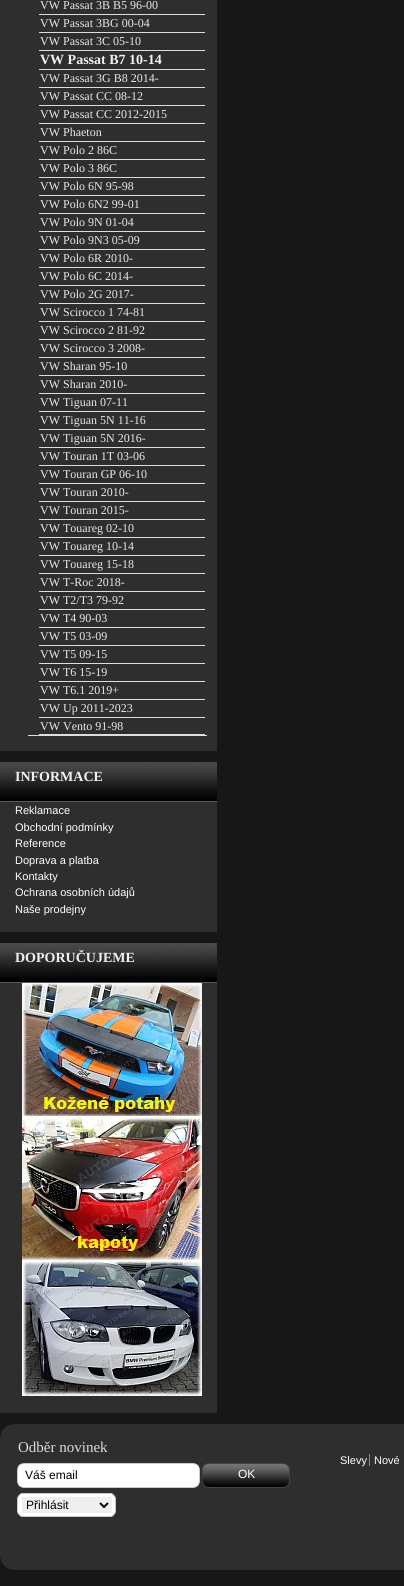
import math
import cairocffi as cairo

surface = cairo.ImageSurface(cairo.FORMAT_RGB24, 404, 1586)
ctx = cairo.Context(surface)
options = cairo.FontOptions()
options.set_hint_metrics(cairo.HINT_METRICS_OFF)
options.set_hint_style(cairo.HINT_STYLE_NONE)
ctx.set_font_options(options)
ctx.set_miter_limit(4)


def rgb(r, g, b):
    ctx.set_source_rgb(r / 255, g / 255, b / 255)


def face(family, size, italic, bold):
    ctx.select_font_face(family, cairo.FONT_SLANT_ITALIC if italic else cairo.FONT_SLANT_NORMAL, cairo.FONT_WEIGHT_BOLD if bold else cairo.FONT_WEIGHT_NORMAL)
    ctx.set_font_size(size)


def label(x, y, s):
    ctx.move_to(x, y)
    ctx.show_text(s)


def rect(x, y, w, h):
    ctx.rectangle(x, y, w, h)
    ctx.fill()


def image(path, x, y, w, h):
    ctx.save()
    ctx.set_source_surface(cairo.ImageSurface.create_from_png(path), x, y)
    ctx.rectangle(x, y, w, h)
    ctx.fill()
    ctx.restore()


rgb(23, 23, 23)
ctx.paint()
rgb(46, 46, 46)
rect(0, 0, 217, 751)
rgb(221, 221, 221)
rect(28, 735, 179, 1)
rect(39, 14, 166, 1)
face('Liberation Serif', 12, 0, 0)
rgb(233, 233, 233)
label(40, 9, 'VW Passat 3B B5 96-00')
rgb(221, 221, 221)
rect(39, 32, 166, 1)
rgb(233, 233, 233)
label(40, 27, 'VW Passat 3BG 00-04')
rgb(221, 221, 221)
rect(39, 50, 166, 1)
rgb(233, 233, 233)
label(40, 45, 'VW Passat 3C 05-10')
rgb(221, 221, 221)
rect(39, 69, 166, 1)
face('Liberation Serif', 14, 0, 1)
rgb(240, 241, 241)
label(40, 64, 'VW Passat B7 10-14')
rgb(221, 221, 221)
rect(39, 87, 166, 1)
face('Liberation Serif', 12, 0, 0)
rgb(233, 233, 233)
label(40, 82, 'VW Passat 3G B8 2014-')
rgb(221, 221, 221)
rect(39, 105, 166, 1)
rgb(233, 233, 233)
label(40, 100, 'VW Passat CC 08-12')
rgb(221, 221, 221)
rect(39, 123, 166, 1)
rgb(233, 233, 233)
label(40, 118, 'VW Passat CC 2012-2015')
rgb(221, 221, 221)
rect(39, 141, 166, 1)
rgb(233, 233, 233)
label(40, 136, 'VW Phaeton')
rgb(221, 221, 221)
rect(39, 159, 166, 1)
rgb(233, 233, 233)
label(40, 154, 'VW Polo 2 86C')
rgb(221, 221, 221)
rect(39, 177, 166, 1)
rgb(233, 233, 233)
label(40, 172, 'VW Polo 3 86C')
rgb(221, 221, 221)
rect(39, 195, 166, 1)
rgb(233, 233, 233)
label(40, 190, 'VW Polo 6N 95-98')
rgb(221, 221, 221)
rect(39, 213, 166, 1)
rgb(233, 233, 233)
label(40, 208, 'VW Polo 6N2 99-01')
rgb(221, 221, 221)
rect(39, 231, 166, 1)
rgb(233, 233, 233)
label(40, 226, 'VW Polo 9N 01-04')
rgb(221, 221, 221)
rect(39, 249, 166, 1)
rgb(233, 233, 233)
label(40, 244, 'VW Polo 9N3 05-09')
rgb(221, 221, 221)
rect(39, 267, 166, 1)
rgb(233, 233, 233)
label(40, 262, 'VW Polo 6R 2010-')
rgb(221, 221, 221)
rect(39, 285, 166, 1)
rgb(233, 233, 233)
label(40, 280, 'VW Polo 6C 2014-')
rgb(221, 221, 221)
rect(39, 303, 166, 1)
rgb(233, 233, 233)
label(40, 298, 'VW Polo 2G 2017-')
rgb(221, 221, 221)
rect(39, 321, 166, 1)
rgb(233, 233, 233)
label(40, 316, 'VW Scirocco 1 74-81')
rgb(221, 221, 221)
rect(39, 339, 166, 1)
rgb(233, 233, 233)
label(40, 334, 'VW Scirocco 2 81-92')
rgb(221, 221, 221)
rect(39, 357, 166, 1)
rgb(233, 233, 233)
label(40, 352, 'VW Scirocco 3 2008-')
rgb(221, 221, 221)
rect(39, 375, 166, 1)
rgb(233, 233, 233)
label(40, 370, 'VW Sharan 95-10')
rgb(221, 221, 221)
rect(39, 393, 166, 1)
rgb(233, 233, 233)
label(40, 388, 'VW Sharan 2010-')
rgb(221, 221, 221)
rect(39, 411, 166, 1)
rgb(233, 233, 233)
label(40, 406, 'VW Tiguan 07-11')
rgb(221, 221, 221)
rect(39, 429, 166, 1)
rgb(233, 233, 233)
label(40, 424, 'VW Tiguan 5N 11-16')
rgb(221, 221, 221)
rect(39, 447, 166, 1)
rgb(233, 233, 233)
label(40, 442, 'VW Tiguan 5N 2016-')
rgb(221, 221, 221)
rect(39, 465, 166, 1)
rgb(233, 233, 233)
label(40, 460, 'VW Touran 1T 03-06')
rgb(221, 221, 221)
rect(39, 483, 166, 1)
rgb(233, 233, 233)
label(40, 478, 'VW Touran GP 06-10')
rgb(221, 221, 221)
rect(39, 501, 166, 1)
rgb(233, 233, 233)
label(40, 496, 'VW Touran 2010-')
rgb(221, 221, 221)
rect(39, 519, 166, 1)
rgb(233, 233, 233)
label(40, 514, 'VW Touran 2015-')
rgb(221, 221, 221)
rect(39, 537, 166, 1)
rgb(233, 233, 233)
label(40, 532, 'VW Touareg 02-10')
rgb(221, 221, 221)
rect(39, 555, 166, 1)
rgb(233, 233, 233)
label(40, 550, 'VW Touareg 10-14')
rgb(221, 221, 221)
rect(39, 573, 166, 1)
rgb(233, 233, 233)
label(40, 568, 'VW Touareg 15-18')
rgb(221, 221, 221)
rect(39, 591, 166, 1)
rgb(233, 233, 233)
label(40, 586, 'VW T-Roc 2018-')
rgb(221, 221, 221)
rect(39, 609, 166, 1)
rgb(233, 233, 233)
label(40, 604, 'VW T2/T3 79-92')
rgb(221, 221, 221)
rect(39, 627, 166, 1)
rgb(233, 233, 233)
label(40, 622, 'VW T4 90-03')
rgb(221, 221, 221)
rect(39, 645, 166, 1)
rgb(233, 233, 233)
label(40, 640, 'VW T5 03-09')
rgb(221, 221, 221)
rect(39, 663, 166, 1)
rgb(233, 233, 233)
label(40, 658, 'VW T5 09-15')
rgb(221, 221, 221)
rect(39, 681, 166, 1)
rgb(233, 233, 233)
label(40, 676, 'VW T6 15-19')
rgb(221, 221, 221)
rect(39, 699, 166, 1)
rgb(233, 233, 233)
label(40, 694, 'VW T6.1 2019+')
rgb(221, 221, 221)
rect(39, 717, 166, 1)
rgb(233, 233, 233)
label(40, 712, 'VW Up 2011-2023')
rgb(221, 221, 221)
rect(39, 734, 166, 1)
rgb(233, 233, 233)
label(40, 730, 'VW Vento 91-98')
image('image0.png', 0, 762, 217, 39)
rgb(89, 90, 94)
rect(0, 801, 217, 1)
face('Liberation Serif', 14, 0, 1)
rgb(240, 241, 241)
label(15, 781, 'INFORMACE')
rgb(46, 46, 46)
rect(0, 802, 217, 130)
face('Liberation Sans', 11, 0, 0)
rgb(255, 255, 255)
label(15, 814, 'Reklamace')
label(15, 831, 'Obchodní podmínky')
label(15, 847, 'Reference')
label(15, 864, 'Doprava a platba')
label(15, 880, 'Kontakty')
label(15, 896, 'Ochrana osobních údajů')
label(15, 913, 'Naše prodejny')
image('image0.png', 0, 943, 217, 39)
rgb(89, 90, 94)
rect(0, 982, 217, 1)
face('Liberation Serif', 14, 0, 1)
rgb(240, 241, 241)
label(15, 962, 'DOPORUČUJEME')
rgb(46, 46, 46)
rect(0, 983, 217, 430)
image('image1.png', 22, 983, 180, 413)
rect(13, 1424, 391, 146)
image('image2.png', 0, 1424, 13, 146)
face('Liberation Serif', 15, 0, 0)
rgb(221, 221, 221)
label(18, 1452, 'Odběr novinek')
image('image3.png', 17, 1463, 183, 25)
face('Liberation Sans', 12, 0, 0)
rgb(0, 0, 0)
label(25, 1479, 'Váš email')
image('image4.png', 202, 1463, 88, 25)
rgb(255, 255, 255)
label(238, 1478, 'OK')
image('image5.png', 17, 1493, 99, 24)
rgb(239, 239, 239)
rect(22, 1497, 90, 16)
ctx.new_path()
ctx.move_to(100, 1503)
ctx.line_to(104, 1507)
ctx.line_to(108, 1503)
rgb(0, 0, 0)
ctx.stroke()
label(26, 1509, 'Přihlásit')
face('Liberation Sans', 11, 0, 0)
rgb(255, 255, 255)
label(340, 1464, 'Slevy')
label(374, 1464, 'Nové')
rgb(136, 136, 136)
rect(369, 1454, 1, 12)
surface.write_to_png('render.png')
